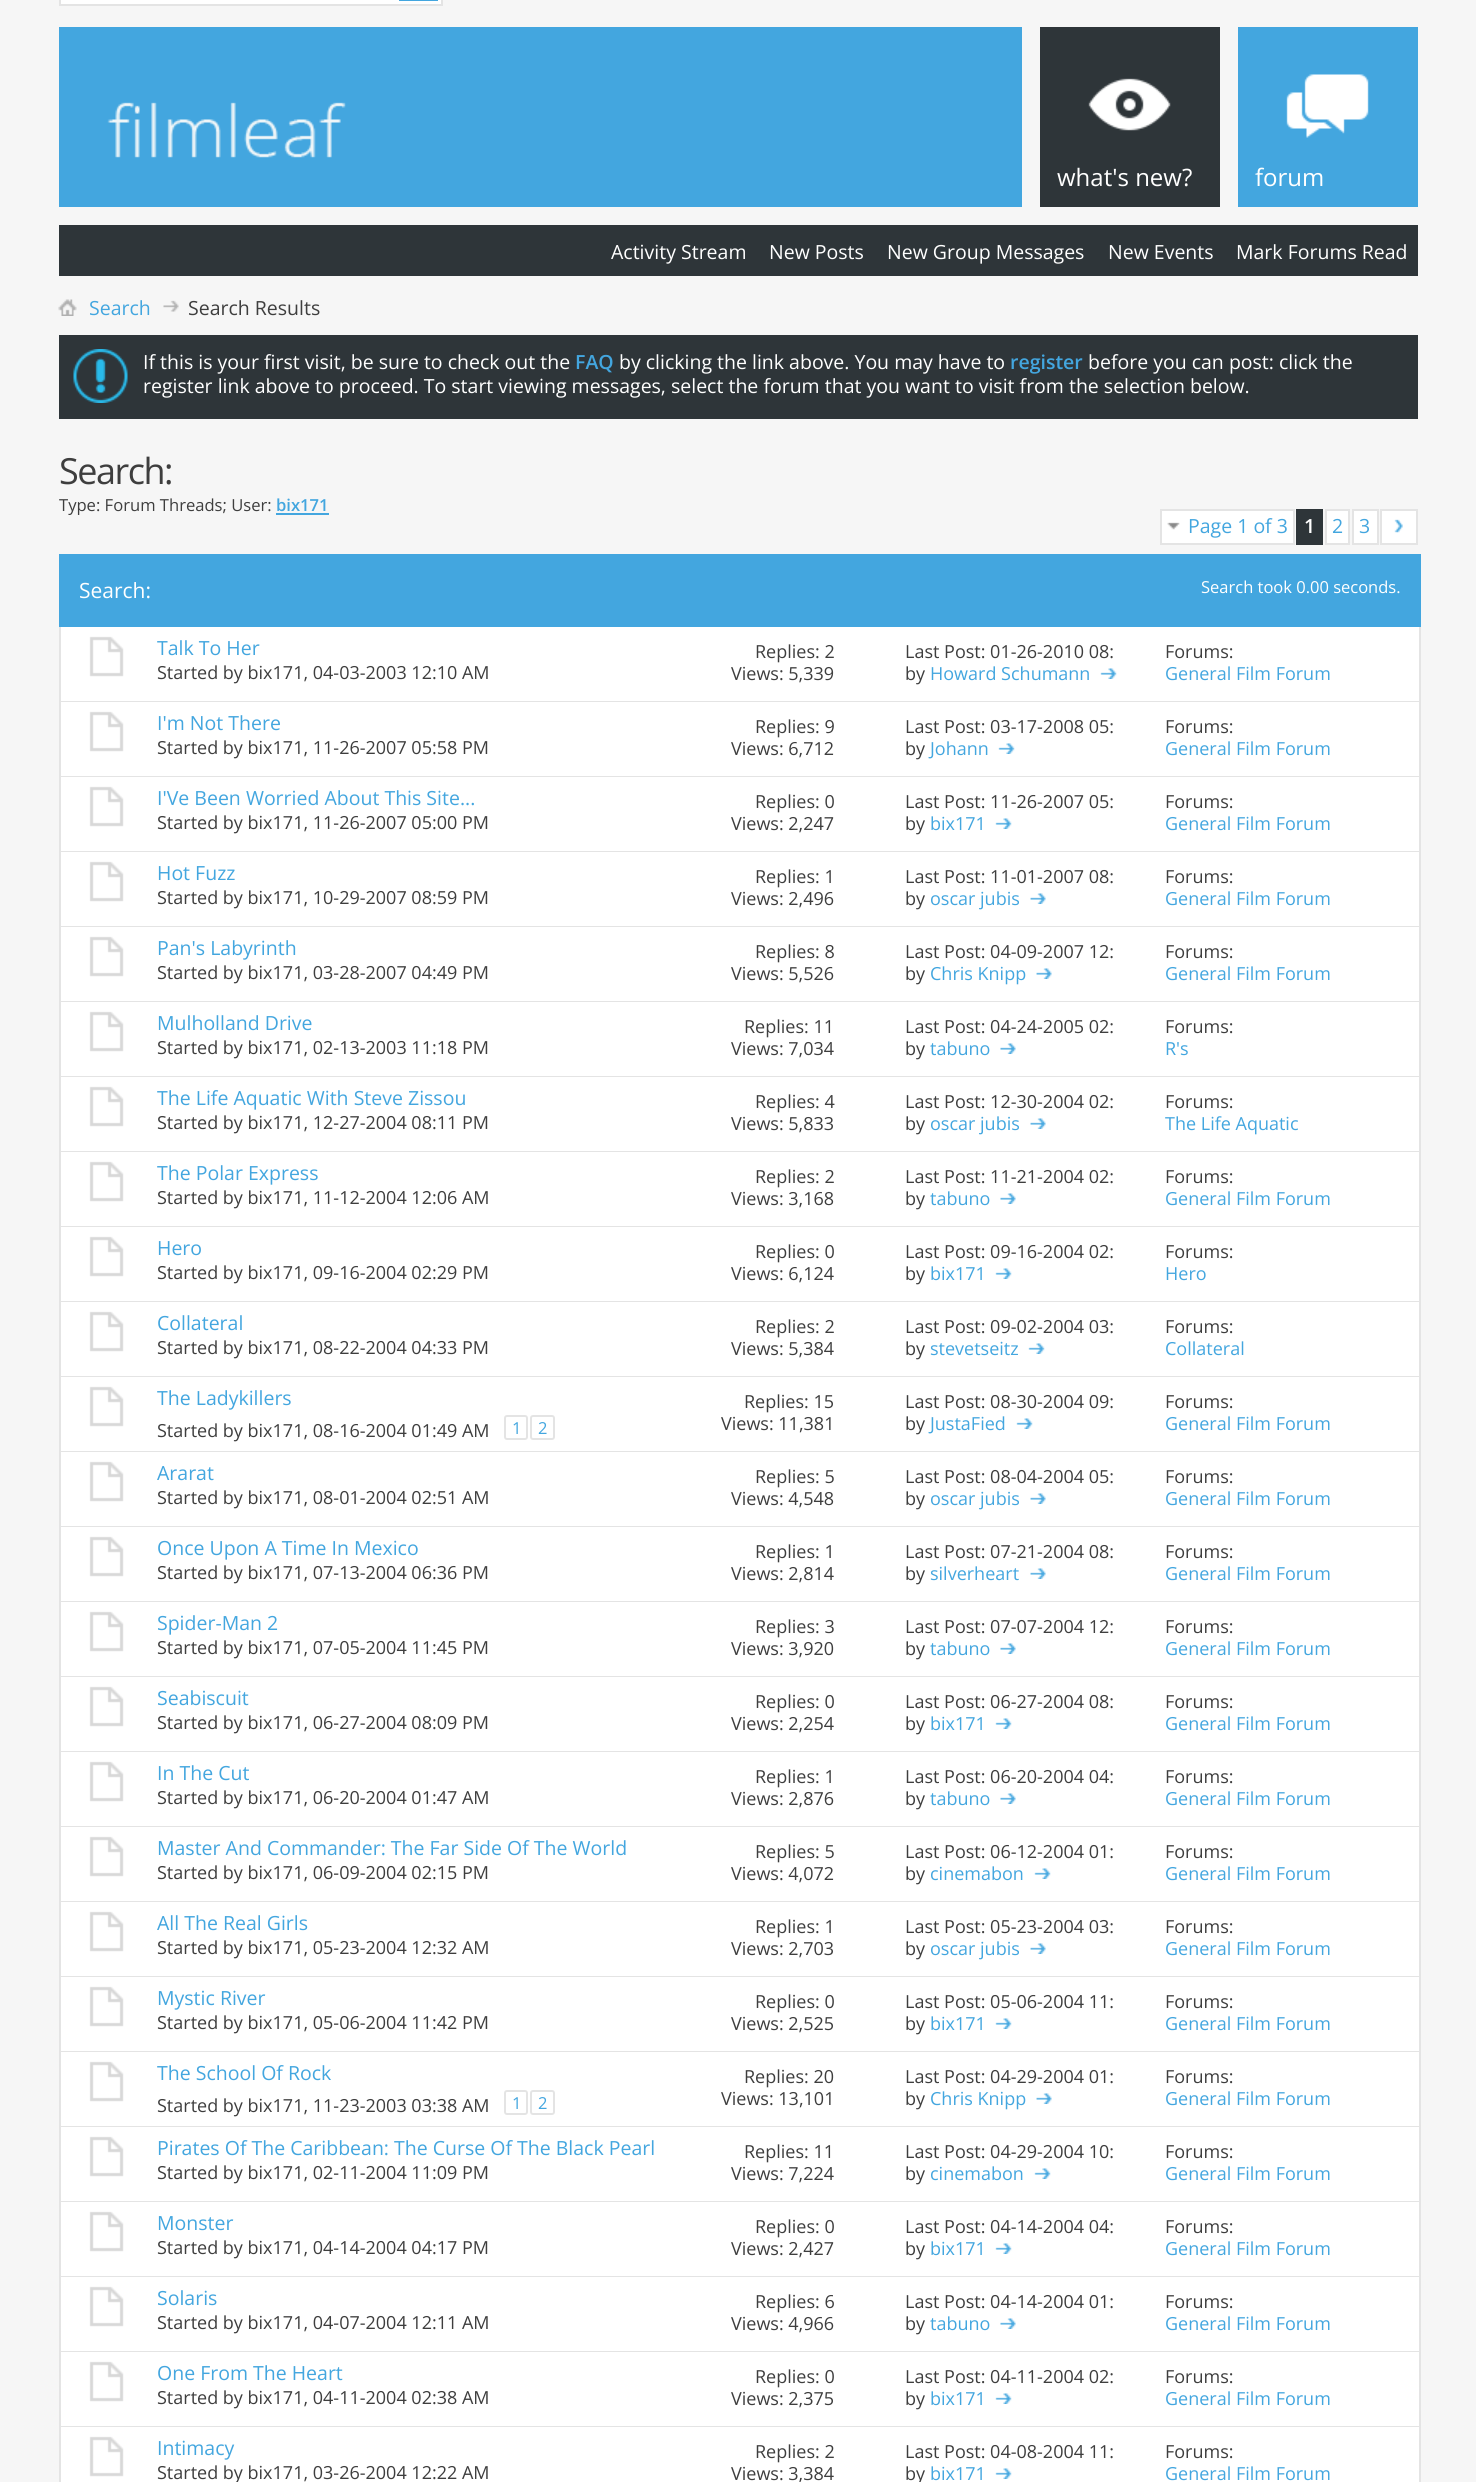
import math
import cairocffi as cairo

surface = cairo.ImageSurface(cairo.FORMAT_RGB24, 1476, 2482)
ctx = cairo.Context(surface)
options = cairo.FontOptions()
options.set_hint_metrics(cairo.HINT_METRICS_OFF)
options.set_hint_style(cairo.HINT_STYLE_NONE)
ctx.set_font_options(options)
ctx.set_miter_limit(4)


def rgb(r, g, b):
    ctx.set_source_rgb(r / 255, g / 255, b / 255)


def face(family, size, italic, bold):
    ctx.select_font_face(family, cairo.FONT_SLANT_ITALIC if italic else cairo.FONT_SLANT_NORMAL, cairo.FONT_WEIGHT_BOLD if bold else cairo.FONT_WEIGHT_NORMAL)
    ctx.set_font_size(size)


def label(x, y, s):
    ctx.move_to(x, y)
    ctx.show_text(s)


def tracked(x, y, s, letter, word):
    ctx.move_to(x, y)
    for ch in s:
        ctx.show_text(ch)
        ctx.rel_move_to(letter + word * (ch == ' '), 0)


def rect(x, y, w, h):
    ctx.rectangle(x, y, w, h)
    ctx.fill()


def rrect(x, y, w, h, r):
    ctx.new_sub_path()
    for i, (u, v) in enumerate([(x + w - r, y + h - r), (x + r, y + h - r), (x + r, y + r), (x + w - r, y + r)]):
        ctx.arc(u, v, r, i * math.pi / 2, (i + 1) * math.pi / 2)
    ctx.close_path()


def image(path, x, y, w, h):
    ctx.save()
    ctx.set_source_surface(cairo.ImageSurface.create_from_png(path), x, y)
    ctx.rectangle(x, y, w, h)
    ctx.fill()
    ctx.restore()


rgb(246, 246, 246)
ctx.paint()
rgb(255, 255, 255)
ctx.rectangle(60, -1, 382, 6)
ctx.fill_preserve()
rgb(228, 228, 228)
ctx.stroke()
rgb(67, 166, 223)
rect(399, 0, 39, 1)
rect(59, 27, 1359, 180)
image('image0.png', 107, 102, 239, 56)
rgb(246, 246, 246)
rect(1022, 27, 18, 180)
rgb(46, 53, 57)
rect(1040, 27, 180, 180)
image('image1.png', 1088, 78, 83, 53)
face('Open Sans', 24, 0, 0)
rgb(255, 255, 255)
label(1057, 186, 'what\'s new?')
rgb(246, 246, 246)
rect(1220, 27, 18, 180)
image('image2.png', 1286, 74, 83, 64)
rgb(255, 255, 255)
label(1255, 186, 'forum')
rgb(46, 53, 57)
rect(59, 225, 1359, 51)
face('Open Sans', 19.5, 0, 0)
rgb(255, 255, 255)
label(611, 259, 'Activity Stream')
label(769, 259, 'New Posts')
label(887, 259, 'New Group Messages')
label(1108, 259, 'New Events')
label(1236, 259, 'Mark Forums Read')
image('image3.png', 58, 299, 19, 17)
image('image4.png', 163, 300, 16, 12)
rgb(67, 166, 223)
label(89, 315, 'Search')
rgb(62, 62, 62)
label(188, 315, 'Search Results')
rgb(46, 53, 57)
rect(59, 335, 1359, 84)
image('image5.png', 73, 349, 55, 54)
rgb(255, 255, 255)
label(143, 369, 'If this is your first visit, be sure to check out the')
face('Open Sans SemiBold', 19.5, 0, 0)
rgb(67, 166, 223)
label(575, 369, 'FAQ')
face('Open Sans', 19.5, 0, 0)
rgb(255, 255, 255)
label(619, 369, 'by clicking the link above. You may have to')
face('Open Sans SemiBold', 19.5, 0, 0)
rgb(67, 166, 223)
label(1010, 369, 'register')
face('Open Sans', 19.5, 0, 0)
rgb(255, 255, 255)
label(1088, 369, 'before you can post: click the')
label(143, 393, 'register link above to proceed. To start viewing messages, select the forum that you want to visit from the selection below.')
face('Open Sans', 36, 0, 0)
rgb(62, 62, 62)
tracked(59, 484, 'Search:', -1.5, 0)
face('Open Sans', 16.6, 0, 0)
label(59, 511, 'Type: Forum Threads; User:')
face('Open Sans SemiBold', 16.6, 0, 0)
rgb(67, 166, 223)
label(276, 511, 'bix171')
rect(276, 513, 53, 2)
rgb(255, 255, 255)
rect(1162, 511, 131, 32)
image('image6.png', 1167, 522, 13, 8)
ctx.rectangle(1161, 510, 133, 34)
rgb(228, 228, 228)
ctx.stroke()
face('Open Sans', 19.5, 0, 0)
rgb(67, 166, 223)
label(1188, 533, 'Page 1 of 3')
rgb(46, 53, 57)
rect(1296, 509, 27, 36)
face('Open Sans SemiBold', 19.5, 0, 0)
rgb(255, 255, 255)
label(1304, 533, '1')
ctx.rectangle(1326, 510, 23, 34)
ctx.fill_preserve()
rgb(228, 228, 228)
ctx.stroke()
face('Open Sans', 19.5, 0, 0)
rgb(67, 166, 223)
label(1332, 533, '2')
rgb(255, 255, 255)
ctx.rectangle(1353, 510, 25, 34)
ctx.fill_preserve()
rgb(228, 228, 228)
ctx.stroke()
rgb(67, 166, 223)
label(1359, 533, '3')
rgb(255, 255, 255)
ctx.rectangle(1381, 510, 36, 34)
ctx.fill_preserve()
rgb(228, 228, 228)
ctx.stroke()
image('image7.png', 1394, 519, 9, 14)
rgb(67, 166, 223)
rect(59, 554, 1362, 73)
face('Open Sans', 21, 0, 0)
rgb(255, 255, 255)
label(79, 598, 'Search:')
face('Open Sans', 16.5, 0, 0)
label(1201, 593, 'Search took 0.00 seconds.')
rect(61, 627, 1358, 74)
rgb(228, 228, 228)
rect(1419, 627, 2, 1050)
rect(59, 701, 1362, 1)
rect(59, 627, 2, 75)
image('image8.png', 89, 636, 35, 41)
face('Open Sans', 19.5, 0, 0)
rgb(67, 166, 223)
label(157, 655, 'Talk To Her')
face('Open Sans', 18, 0, 0)
rgb(62, 62, 62)
label(157, 679, 'Started by bix171, 04-03-2003 12:10 AM')
label(755, 658, 'Replies: 2')
label(731, 680, 'Views: 5,339')
label(905, 658, 'Last Post: 01-26-2010 08:')
label(905, 680, 'by')
rgb(67, 166, 223)
label(930, 680, 'Howard Schumann')
image('image9.png', 1100, 668, 17, 11)
rgb(62, 62, 62)
label(1165, 658, 'Forums:')
rgb(67, 166, 223)
label(1165, 680, 'General Film Forum')
rgb(255, 255, 255)
rect(61, 702, 1358, 74)
rgb(228, 228, 228)
rect(59, 776, 1362, 1)
rect(59, 702, 2, 75)
image('image8.png', 89, 711, 35, 41)
face('Open Sans', 19.5, 0, 0)
rgb(67, 166, 223)
label(157, 730, 'I\'m Not There')
face('Open Sans', 18, 0, 0)
rgb(62, 62, 62)
label(157, 754, 'Started by bix171, 11-26-2007 05:58 PM')
label(755, 733, 'Replies: 9')
label(731, 755, 'Views: 6,712')
label(905, 733, 'Last Post: 03-17-2008 05:')
label(905, 755, 'by')
rgb(67, 166, 223)
label(930, 755, 'Johann')
image('image9.png', 998, 743, 17, 11)
rgb(62, 62, 62)
label(1165, 733, 'Forums:')
rgb(67, 166, 223)
label(1165, 755, 'General Film Forum')
rgb(255, 255, 255)
rect(61, 777, 1358, 74)
rgb(228, 228, 228)
rect(59, 851, 1362, 1)
rect(59, 777, 2, 75)
image('image8.png', 89, 786, 35, 41)
face('Open Sans', 19.5, 0, 0)
rgb(67, 166, 223)
label(157, 805, 'I\'Ve Been Worried About This Site...')
face('Open Sans', 18, 0, 0)
rgb(62, 62, 62)
label(157, 829, 'Started by bix171, 11-26-2007 05:00 PM')
label(755, 808, 'Replies: 0')
label(731, 830, 'Views: 2,247')
label(905, 808, 'Last Post: 11-26-2007 05:')
label(905, 830, 'by')
rgb(67, 166, 223)
label(930, 830, 'bix171')
image('image9.png', 995, 818, 17, 11)
rgb(62, 62, 62)
label(1165, 808, 'Forums:')
rgb(67, 166, 223)
label(1165, 830, 'General Film Forum')
rgb(255, 255, 255)
rect(61, 852, 1358, 74)
rgb(228, 228, 228)
rect(59, 926, 1362, 1)
rect(59, 852, 2, 75)
image('image8.png', 89, 861, 35, 41)
face('Open Sans', 19.5, 0, 0)
rgb(67, 166, 223)
label(157, 880, 'Hot Fuzz')
face('Open Sans', 18, 0, 0)
rgb(62, 62, 62)
label(157, 904, 'Started by bix171, 10-29-2007 08:59 PM')
label(755, 883, 'Replies: 1')
label(731, 905, 'Views: 2,496')
label(905, 883, 'Last Post: 11-01-2007 08:')
label(905, 905, 'by')
rgb(67, 166, 223)
label(930, 905, 'oscar jubis')
image('image10.png', 1030, 893, 16, 11)
rgb(62, 62, 62)
label(1165, 883, 'Forums:')
rgb(67, 166, 223)
label(1165, 905, 'General Film Forum')
rgb(255, 255, 255)
rect(61, 927, 1358, 74)
rgb(228, 228, 228)
rect(59, 1001, 1362, 1)
rect(59, 927, 2, 75)
image('image8.png', 89, 936, 35, 41)
face('Open Sans', 19.5, 0, 0)
rgb(67, 166, 223)
label(157, 955, 'Pan\'s Labyrinth')
face('Open Sans', 18, 0, 0)
rgb(62, 62, 62)
label(157, 979, 'Started by bix171, 03-28-2007 04:49 PM')
label(755, 958, 'Replies: 8')
label(731, 980, 'Views: 5,526')
label(905, 958, 'Last Post: 04-09-2007 12:')
label(905, 980, 'by')
rgb(67, 166, 223)
label(930, 980, 'Chris Knipp')
image('image10.png', 1036, 968, 16, 11)
rgb(62, 62, 62)
label(1165, 958, 'Forums:')
rgb(67, 166, 223)
label(1165, 980, 'General Film Forum')
rgb(255, 255, 255)
rect(61, 1002, 1358, 74)
rgb(228, 228, 228)
rect(59, 1076, 1362, 1)
rect(59, 1002, 2, 75)
image('image8.png', 89, 1011, 35, 41)
face('Open Sans', 19.5, 0, 0)
rgb(67, 166, 223)
label(157, 1030, 'Mulholland Drive')
face('Open Sans', 18, 0, 0)
rgb(62, 62, 62)
label(157, 1054, 'Started by bix171, 02-13-2003 11:18 PM')
label(744, 1033, 'Replies: 11')
label(731, 1055, 'Views: 7,034')
label(905, 1033, 'Last Post: 04-24-2005 02:')
label(905, 1055, 'by')
rgb(67, 166, 223)
label(930, 1055, 'tabuno')
image('image11.png', 1000, 1043, 16, 11)
rgb(62, 62, 62)
label(1165, 1033, 'Forums:')
rgb(67, 166, 223)
label(1165, 1055, 'R\'s')
rgb(255, 255, 255)
rect(61, 1077, 1358, 74)
rgb(228, 228, 228)
rect(59, 1151, 1362, 1)
rect(59, 1077, 2, 75)
image('image8.png', 89, 1086, 35, 41)
face('Open Sans', 19.5, 0, 0)
rgb(67, 166, 223)
label(157, 1105, 'The Life Aquatic With Steve Zissou')
face('Open Sans', 18, 0, 0)
rgb(62, 62, 62)
label(157, 1129, 'Started by bix171, 12-27-2004 08:11 PM')
label(755, 1108, 'Replies: 4')
label(731, 1130, 'Views: 5,833')
label(905, 1108, 'Last Post: 12-30-2004 02:')
label(905, 1130, 'by')
rgb(67, 166, 223)
label(930, 1130, 'oscar jubis')
image('image10.png', 1030, 1118, 16, 11)
rgb(62, 62, 62)
label(1165, 1108, 'Forums:')
rgb(67, 166, 223)
label(1165, 1130, 'The Life Aquatic')
rgb(255, 255, 255)
rect(61, 1152, 1358, 74)
rgb(228, 228, 228)
rect(59, 1226, 1362, 1)
rect(59, 1152, 2, 75)
image('image8.png', 89, 1161, 35, 41)
face('Open Sans', 19.5, 0, 0)
rgb(67, 166, 223)
label(157, 1180, 'The Polar Express')
face('Open Sans', 18, 0, 0)
rgb(62, 62, 62)
label(157, 1204, 'Started by bix171, 11-12-2004 12:06 AM')
label(755, 1183, 'Replies: 2')
label(731, 1205, 'Views: 3,168')
label(905, 1183, 'Last Post: 11-21-2004 02:')
label(905, 1205, 'by')
rgb(67, 166, 223)
label(930, 1205, 'tabuno')
image('image11.png', 1000, 1193, 16, 11)
rgb(62, 62, 62)
label(1165, 1183, 'Forums:')
rgb(67, 166, 223)
label(1165, 1205, 'General Film Forum')
rgb(255, 255, 255)
rect(61, 1227, 1358, 74)
rgb(228, 228, 228)
rect(59, 1301, 1362, 1)
rect(59, 1227, 2, 75)
image('image8.png', 89, 1236, 35, 41)
face('Open Sans', 19.5, 0, 0)
rgb(67, 166, 223)
label(157, 1255, 'Hero')
face('Open Sans', 18, 0, 0)
rgb(62, 62, 62)
label(157, 1279, 'Started by bix171, 09-16-2004 02:29 PM')
label(755, 1258, 'Replies: 0')
label(731, 1280, 'Views: 6,124')
label(905, 1258, 'Last Post: 09-16-2004 02:')
label(905, 1280, 'by')
rgb(67, 166, 223)
label(930, 1280, 'bix171')
image('image9.png', 995, 1268, 17, 11)
rgb(62, 62, 62)
label(1165, 1258, 'Forums:')
rgb(67, 166, 223)
label(1165, 1280, 'Hero')
rgb(255, 255, 255)
rect(61, 1302, 1358, 74)
rgb(228, 228, 228)
rect(59, 1376, 1362, 1)
rect(59, 1302, 2, 75)
image('image8.png', 89, 1311, 35, 41)
face('Open Sans', 19.5, 0, 0)
rgb(67, 166, 223)
label(157, 1330, 'Collateral')
face('Open Sans', 18, 0, 0)
rgb(62, 62, 62)
label(157, 1354, 'Started by bix171, 08-22-2004 04:33 PM')
label(755, 1333, 'Replies: 2')
label(731, 1355, 'Views: 5,384')
label(905, 1333, 'Last Post: 09-02-2004 03:')
label(905, 1355, 'by')
rgb(67, 166, 223)
label(930, 1355, 'stevetseitz')
image('image9.png', 1028, 1343, 17, 11)
rgb(62, 62, 62)
label(1165, 1333, 'Forums:')
rgb(67, 166, 223)
label(1165, 1355, 'Collateral')
rgb(255, 255, 255)
rect(61, 1377, 1358, 74)
rgb(228, 228, 228)
rect(59, 1451, 1362, 1)
rect(59, 1377, 2, 75)
image('image8.png', 89, 1386, 35, 41)
face('Open Sans', 19.5, 0, 0)
rgb(67, 166, 223)
label(157, 1405, 'The Ladykillers')
face('Open Sans', 18, 0, 0)
rgb(62, 62, 62)
label(157, 1437, 'Started by bix171, 08-16-2004 01:49 AM')
rrect(505, 1416, 22, 23, 2)
rgb(228, 228, 228)
ctx.stroke()
face('Open Sans', 16.5, 0, 0)
rgb(67, 166, 223)
label(512, 1434, '1')
rrect(531, 1416, 23, 23, 2)
rgb(228, 228, 228)
ctx.stroke()
rgb(67, 166, 223)
label(538, 1434, '2')
face('Open Sans', 18, 0, 0)
rgb(62, 62, 62)
label(744, 1408, 'Replies: 15')
label(721, 1430, 'Views: 11,381')
label(905, 1408, 'Last Post: 08-30-2004 09:')
label(905, 1430, 'by')
rgb(67, 166, 223)
label(930, 1430, 'JustaFied')
image('image9.png', 1016, 1418, 17, 11)
rgb(62, 62, 62)
label(1165, 1408, 'Forums:')
rgb(67, 166, 223)
label(1165, 1430, 'General Film Forum')
rgb(255, 255, 255)
rect(61, 1452, 1358, 74)
rgb(228, 228, 228)
rect(59, 1526, 1362, 1)
rect(59, 1452, 2, 75)
image('image8.png', 89, 1461, 35, 41)
face('Open Sans', 19.5, 0, 0)
rgb(67, 166, 223)
label(157, 1480, 'Ararat')
face('Open Sans', 18, 0, 0)
rgb(62, 62, 62)
label(157, 1504, 'Started by bix171, 08-01-2004 02:51 AM')
label(755, 1483, 'Replies: 5')
label(731, 1505, 'Views: 4,548')
label(905, 1483, 'Last Post: 08-04-2004 05:')
label(905, 1505, 'by')
rgb(67, 166, 223)
label(930, 1505, 'oscar jubis')
image('image10.png', 1030, 1493, 16, 11)
rgb(62, 62, 62)
label(1165, 1483, 'Forums:')
rgb(67, 166, 223)
label(1165, 1505, 'General Film Forum')
rgb(255, 255, 255)
rect(61, 1527, 1358, 74)
rgb(228, 228, 228)
rect(59, 1601, 1362, 1)
rect(59, 1527, 2, 75)
image('image8.png', 89, 1536, 35, 41)
face('Open Sans', 19.5, 0, 0)
rgb(67, 166, 223)
label(157, 1555, 'Once Upon A Time In Mexico')
face('Open Sans', 18, 0, 0)
rgb(62, 62, 62)
label(157, 1579, 'Started by bix171, 07-13-2004 06:36 PM')
label(755, 1558, 'Replies: 1')
label(731, 1580, 'Views: 2,814')
label(905, 1558, 'Last Post: 07-21-2004 08:')
label(905, 1580, 'by')
rgb(67, 166, 223)
label(930, 1580, 'silverheart')
image('image10.png', 1030, 1568, 16, 11)
rgb(62, 62, 62)
label(1165, 1558, 'Forums:')
rgb(67, 166, 223)
label(1165, 1580, 'General Film Forum')
rgb(255, 255, 255)
rect(61, 1602, 1358, 74)
rgb(228, 228, 228)
rect(59, 1676, 1362, 1)
rect(59, 1602, 2, 75)
image('image8.png', 89, 1611, 35, 41)
face('Open Sans', 19.5, 0, 0)
rgb(67, 166, 223)
label(157, 1630, 'Spider-Man 2')
face('Open Sans', 18, 0, 0)
rgb(62, 62, 62)
label(157, 1654, 'Started by bix171, 07-05-2004 11:45 PM')
label(755, 1633, 'Replies: 3')
label(731, 1655, 'Views: 3,920')
label(905, 1633, 'Last Post: 07-07-2004 12:')
label(905, 1655, 'by')
rgb(67, 166, 223)
label(930, 1655, 'tabuno')
image('image11.png', 1000, 1643, 16, 11)
rgb(62, 62, 62)
label(1165, 1633, 'Forums:')
rgb(67, 166, 223)
label(1165, 1655, 'General Film Forum')
rgb(255, 255, 255)
rect(61, 1677, 1358, 74)
rgb(228, 228, 228)
rect(1419, 1677, 2, 805)
rect(59, 1751, 1362, 1)
rect(59, 1677, 2, 75)
image('image8.png', 89, 1686, 35, 41)
face('Open Sans', 19.5, 0, 0)
rgb(67, 166, 223)
label(157, 1705, 'Seabiscuit')
face('Open Sans', 18, 0, 0)
rgb(62, 62, 62)
label(157, 1729, 'Started by bix171, 06-27-2004 08:09 PM')
label(755, 1708, 'Replies: 0')
label(731, 1730, 'Views: 2,254')
label(905, 1708, 'Last Post: 06-27-2004 08:')
label(905, 1730, 'by')
rgb(67, 166, 223)
label(930, 1730, 'bix171')
image('image9.png', 995, 1718, 17, 11)
rgb(62, 62, 62)
label(1165, 1708, 'Forums:')
rgb(67, 166, 223)
label(1165, 1730, 'General Film Forum')
rgb(255, 255, 255)
rect(61, 1752, 1358, 74)
rgb(228, 228, 228)
rect(59, 1826, 1362, 1)
rect(59, 1752, 2, 75)
image('image8.png', 89, 1761, 35, 41)
face('Open Sans', 19.5, 0, 0)
rgb(67, 166, 223)
label(157, 1780, 'In The Cut')
face('Open Sans', 18, 0, 0)
rgb(62, 62, 62)
label(157, 1804, 'Started by bix171, 06-20-2004 01:47 AM')
label(755, 1783, 'Replies: 1')
label(731, 1805, 'Views: 2,876')
label(905, 1783, 'Last Post: 06-20-2004 04:')
label(905, 1805, 'by')
rgb(67, 166, 223)
label(930, 1805, 'tabuno')
image('image11.png', 1000, 1793, 16, 11)
rgb(62, 62, 62)
label(1165, 1783, 'Forums:')
rgb(67, 166, 223)
label(1165, 1805, 'General Film Forum')
rgb(255, 255, 255)
rect(61, 1827, 1358, 74)
rgb(228, 228, 228)
rect(59, 1901, 1362, 1)
rect(59, 1827, 2, 75)
image('image8.png', 89, 1836, 35, 41)
face('Open Sans', 19.5, 0, 0)
rgb(67, 166, 223)
label(157, 1855, 'Master And Commander: The Far Side Of The World')
face('Open Sans', 18, 0, 0)
rgb(62, 62, 62)
label(157, 1879, 'Started by bix171, 06-09-2004 02:15 PM')
label(755, 1858, 'Replies: 5')
label(731, 1880, 'Views: 4,072')
label(905, 1858, 'Last Post: 06-12-2004 01:')
label(905, 1880, 'by')
rgb(67, 166, 223)
label(930, 1880, 'cinemabon')
image('image9.png', 1034, 1868, 17, 11)
rgb(62, 62, 62)
label(1165, 1858, 'Forums:')
rgb(67, 166, 223)
label(1165, 1880, 'General Film Forum')
rgb(255, 255, 255)
rect(61, 1902, 1358, 74)
rgb(228, 228, 228)
rect(59, 1976, 1362, 1)
rect(59, 1902, 2, 75)
image('image8.png', 89, 1911, 35, 41)
face('Open Sans', 19.5, 0, 0)
rgb(67, 166, 223)
label(157, 1930, 'All The Real Girls')
face('Open Sans', 18, 0, 0)
rgb(62, 62, 62)
label(157, 1954, 'Started by bix171, 05-23-2004 12:32 AM')
label(755, 1933, 'Replies: 1')
label(731, 1955, 'Views: 2,703')
label(905, 1933, 'Last Post: 05-23-2004 03:')
label(905, 1955, 'by')
rgb(67, 166, 223)
label(930, 1955, 'oscar jubis')
image('image10.png', 1030, 1943, 16, 11)
rgb(62, 62, 62)
label(1165, 1933, 'Forums:')
rgb(67, 166, 223)
label(1165, 1955, 'General Film Forum')
rgb(255, 255, 255)
rect(61, 1977, 1358, 74)
rgb(228, 228, 228)
rect(59, 2051, 1362, 1)
rect(59, 1977, 2, 75)
image('image8.png', 89, 1986, 35, 41)
face('Open Sans', 19.5, 0, 0)
rgb(67, 166, 223)
label(157, 2005, 'Mystic River')
face('Open Sans', 18, 0, 0)
rgb(62, 62, 62)
label(157, 2029, 'Started by bix171, 05-06-2004 11:42 PM')
label(755, 2008, 'Replies: 0')
label(731, 2030, 'Views: 2,525')
label(905, 2008, 'Last Post: 05-06-2004 11:')
label(905, 2030, 'by')
rgb(67, 166, 223)
label(930, 2030, 'bix171')
image('image9.png', 995, 2018, 17, 11)
rgb(62, 62, 62)
label(1165, 2008, 'Forums:')
rgb(67, 166, 223)
label(1165, 2030, 'General Film Forum')
rgb(255, 255, 255)
rect(61, 2052, 1358, 74)
rgb(228, 228, 228)
rect(59, 2126, 1362, 1)
rect(59, 2052, 2, 75)
image('image8.png', 89, 2061, 35, 41)
face('Open Sans', 19.5, 0, 0)
rgb(67, 166, 223)
label(157, 2080, 'The School Of Rock')
face('Open Sans', 18, 0, 0)
rgb(62, 62, 62)
label(157, 2112, 'Started by bix171, 11-23-2003 03:38 AM')
rrect(505, 2091, 22, 23, 2)
rgb(228, 228, 228)
ctx.stroke()
face('Open Sans', 16.5, 0, 0)
rgb(67, 166, 223)
label(512, 2109, '1')
rrect(531, 2091, 23, 23, 2)
rgb(228, 228, 228)
ctx.stroke()
rgb(67, 166, 223)
label(538, 2109, '2')
face('Open Sans', 18, 0, 0)
rgb(62, 62, 62)
label(744, 2083, 'Replies: 20')
label(721, 2105, 'Views: 13,101')
label(905, 2083, 'Last Post: 04-29-2004 01:')
label(905, 2105, 'by')
rgb(67, 166, 223)
label(930, 2105, 'Chris Knipp')
image('image10.png', 1036, 2093, 16, 11)
rgb(62, 62, 62)
label(1165, 2083, 'Forums:')
rgb(67, 166, 223)
label(1165, 2105, 'General Film Forum')
rgb(255, 255, 255)
rect(61, 2127, 1358, 74)
rgb(228, 228, 228)
rect(59, 2201, 1362, 1)
rect(59, 2127, 2, 75)
image('image8.png', 89, 2136, 35, 41)
face('Open Sans', 19.5, 0, 0)
rgb(67, 166, 223)
label(157, 2155, 'Pirates Of The Caribbean: The Curse Of The Black Pearl')
face('Open Sans', 18, 0, 0)
rgb(62, 62, 62)
label(157, 2179, 'Started by bix171, 02-11-2004 11:09 PM')
label(744, 2158, 'Replies: 11')
label(731, 2180, 'Views: 7,224')
label(905, 2158, 'Last Post: 04-29-2004 10:')
label(905, 2180, 'by')
rgb(67, 166, 223)
label(930, 2180, 'cinemabon')
image('image9.png', 1034, 2168, 17, 11)
rgb(62, 62, 62)
label(1165, 2158, 'Forums:')
rgb(67, 166, 223)
label(1165, 2180, 'General Film Forum')
rgb(255, 255, 255)
rect(61, 2202, 1358, 74)
rgb(228, 228, 228)
rect(59, 2276, 1362, 1)
rect(59, 2202, 2, 75)
image('image8.png', 89, 2211, 35, 41)
face('Open Sans', 19.5, 0, 0)
rgb(67, 166, 223)
label(157, 2230, 'Monster')
face('Open Sans', 18, 0, 0)
rgb(62, 62, 62)
label(157, 2254, 'Started by bix171, 04-14-2004 04:17 PM')
label(755, 2233, 'Replies: 0')
label(731, 2255, 'Views: 2,427')
label(905, 2233, 'Last Post: 04-14-2004 04:')
label(905, 2255, 'by')
rgb(67, 166, 223)
label(930, 2255, 'bix171')
image('image9.png', 995, 2243, 17, 11)
rgb(62, 62, 62)
label(1165, 2233, 'Forums:')
rgb(67, 166, 223)
label(1165, 2255, 'General Film Forum')
rgb(255, 255, 255)
rect(61, 2277, 1358, 74)
rgb(228, 228, 228)
rect(59, 2351, 1362, 1)
rect(59, 2277, 2, 75)
image('image8.png', 89, 2286, 35, 41)
face('Open Sans', 19.5, 0, 0)
rgb(67, 166, 223)
label(157, 2305, 'Solaris')
face('Open Sans', 18, 0, 0)
rgb(62, 62, 62)
label(157, 2329, 'Started by bix171, 04-07-2004 12:11 AM')
label(755, 2308, 'Replies: 6')
label(731, 2330, 'Views: 4,966')
label(905, 2308, 'Last Post: 04-14-2004 01:')
label(905, 2330, 'by')
rgb(67, 166, 223)
label(930, 2330, 'tabuno')
image('image11.png', 1000, 2318, 16, 11)
rgb(62, 62, 62)
label(1165, 2308, 'Forums:')
rgb(67, 166, 223)
label(1165, 2330, 'General Film Forum')
rgb(255, 255, 255)
rect(61, 2352, 1358, 74)
rgb(228, 228, 228)
rect(59, 2426, 1362, 1)
rect(59, 2352, 2, 130)
image('image8.png', 89, 2361, 35, 41)
face('Open Sans', 19.5, 0, 0)
rgb(67, 166, 223)
label(157, 2380, 'One From The Heart')
face('Open Sans', 18, 0, 0)
rgb(62, 62, 62)
label(157, 2404, 'Started by bix171, 04-11-2004 02:38 AM')
label(755, 2383, 'Replies: 0')
label(731, 2405, 'Views: 2,375')
label(905, 2383, 'Last Post: 04-11-2004 02:')
label(905, 2405, 'by')
rgb(67, 166, 223)
label(930, 2405, 'bix171')
image('image9.png', 995, 2393, 17, 11)
rgb(62, 62, 62)
label(1165, 2383, 'Forums:')
rgb(67, 166, 223)
label(1165, 2405, 'General Film Forum')
rgb(255, 255, 255)
rect(61, 2427, 1358, 55)
image('image8.png', 89, 2436, 35, 41)
face('Open Sans', 19.5, 0, 0)
rgb(67, 166, 223)
label(157, 2455, 'Intimacy')
face('Open Sans', 18, 0, 0)
rgb(62, 62, 62)
label(157, 2479, 'Started by bix171, 03-26-2004 12:22 AM')
label(755, 2458, 'Replies: 2')
label(731, 2480, 'Views: 3,384')
label(905, 2458, 'Last Post: 04-08-2004 11:')
label(905, 2480, 'by')
rgb(67, 166, 223)
label(930, 2480, 'bix171')
image('image9.png', 995, 2468, 17, 11)
rgb(62, 62, 62)
label(1165, 2458, 'Forums:')
rgb(67, 166, 223)
label(1165, 2480, 'General Film Forum')
surface.write_to_png('render.png')
